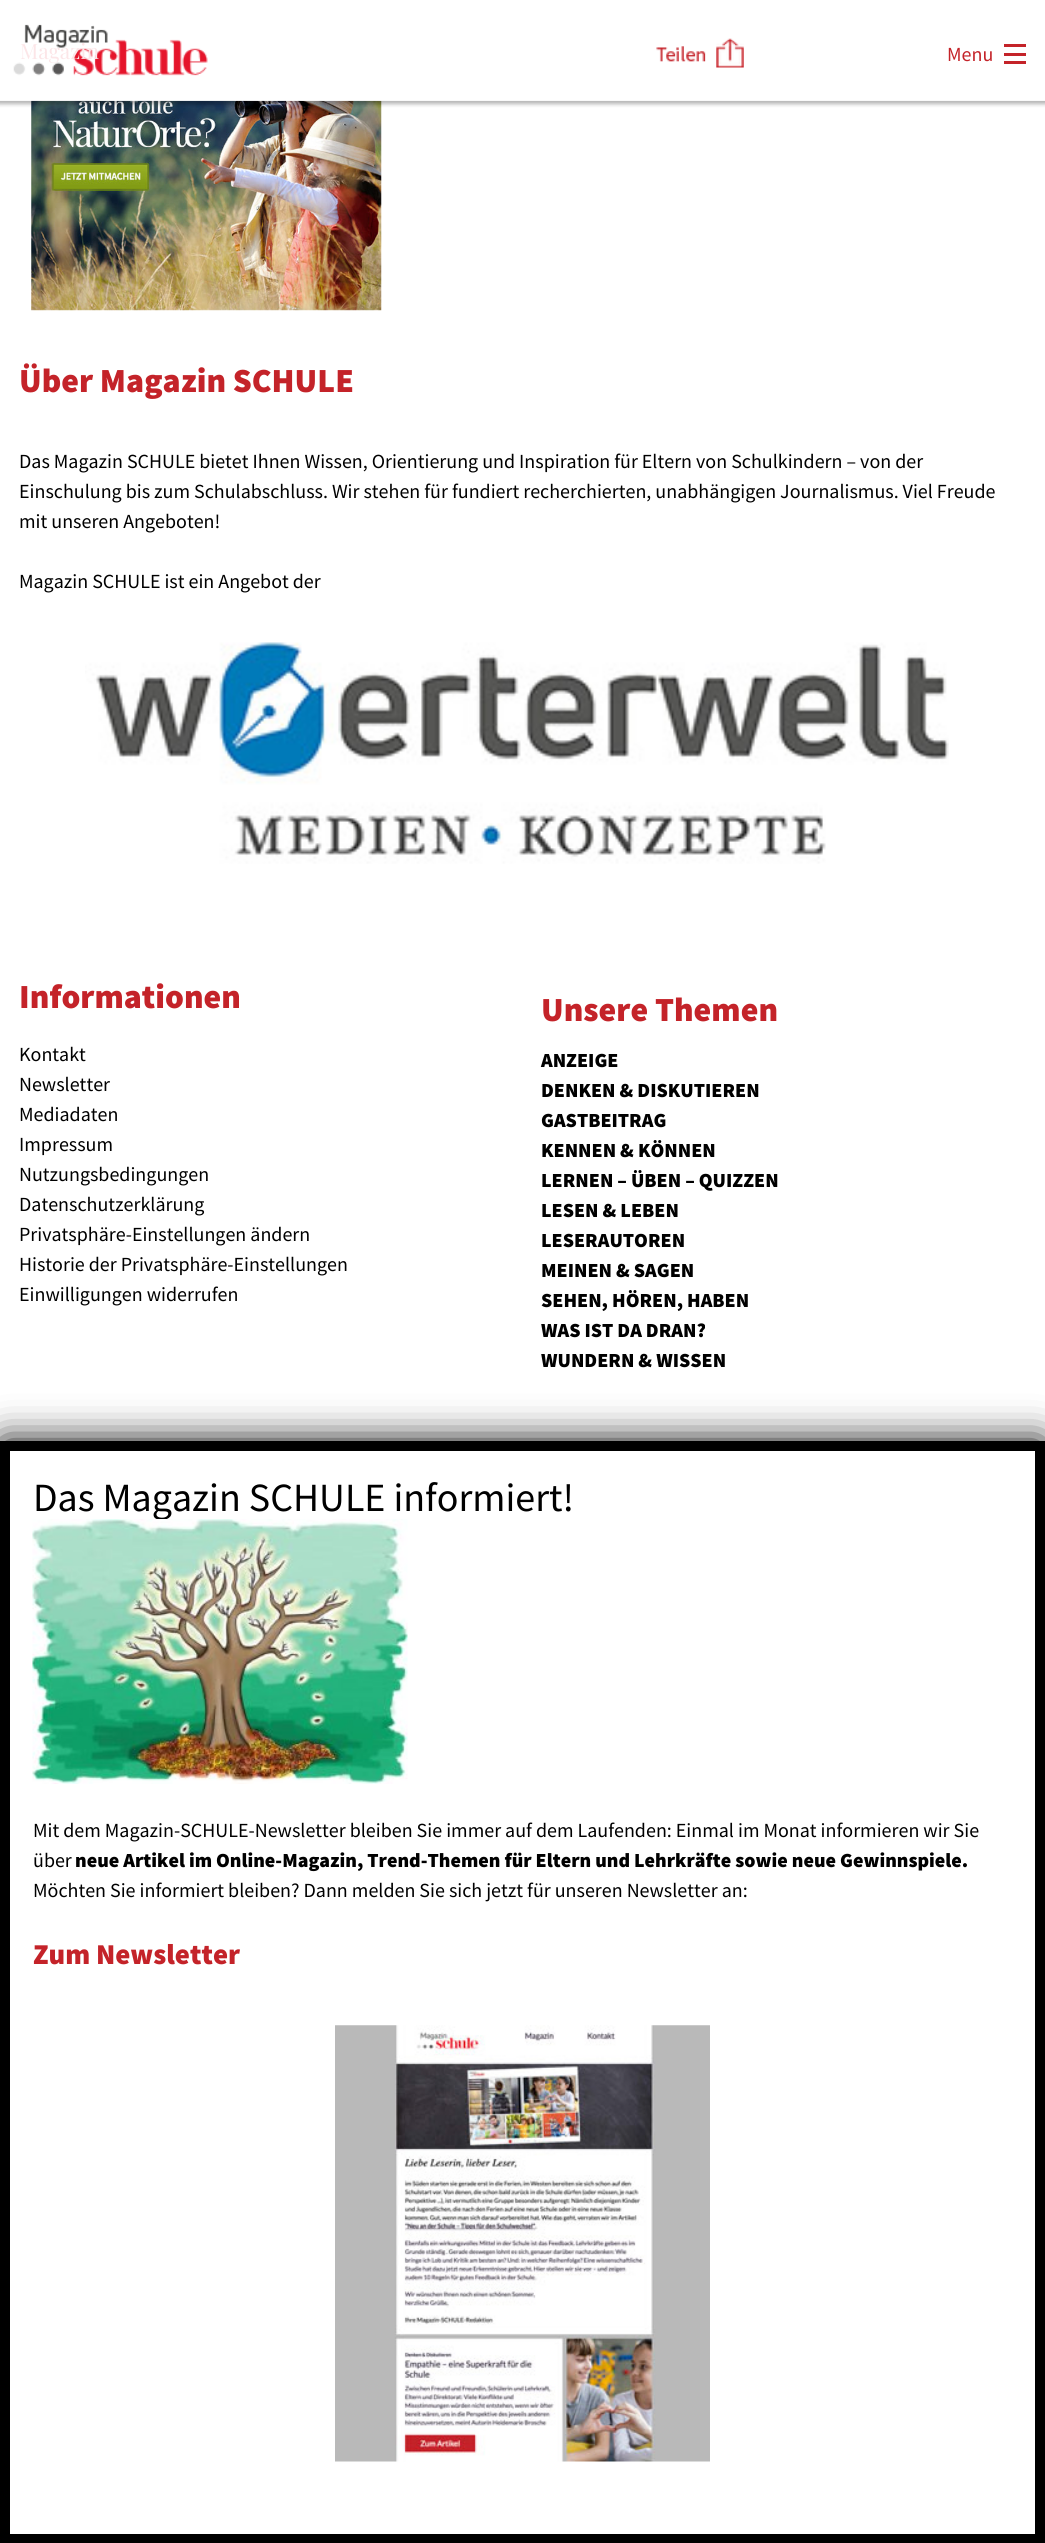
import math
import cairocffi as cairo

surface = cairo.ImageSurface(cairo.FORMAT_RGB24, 1045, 2543)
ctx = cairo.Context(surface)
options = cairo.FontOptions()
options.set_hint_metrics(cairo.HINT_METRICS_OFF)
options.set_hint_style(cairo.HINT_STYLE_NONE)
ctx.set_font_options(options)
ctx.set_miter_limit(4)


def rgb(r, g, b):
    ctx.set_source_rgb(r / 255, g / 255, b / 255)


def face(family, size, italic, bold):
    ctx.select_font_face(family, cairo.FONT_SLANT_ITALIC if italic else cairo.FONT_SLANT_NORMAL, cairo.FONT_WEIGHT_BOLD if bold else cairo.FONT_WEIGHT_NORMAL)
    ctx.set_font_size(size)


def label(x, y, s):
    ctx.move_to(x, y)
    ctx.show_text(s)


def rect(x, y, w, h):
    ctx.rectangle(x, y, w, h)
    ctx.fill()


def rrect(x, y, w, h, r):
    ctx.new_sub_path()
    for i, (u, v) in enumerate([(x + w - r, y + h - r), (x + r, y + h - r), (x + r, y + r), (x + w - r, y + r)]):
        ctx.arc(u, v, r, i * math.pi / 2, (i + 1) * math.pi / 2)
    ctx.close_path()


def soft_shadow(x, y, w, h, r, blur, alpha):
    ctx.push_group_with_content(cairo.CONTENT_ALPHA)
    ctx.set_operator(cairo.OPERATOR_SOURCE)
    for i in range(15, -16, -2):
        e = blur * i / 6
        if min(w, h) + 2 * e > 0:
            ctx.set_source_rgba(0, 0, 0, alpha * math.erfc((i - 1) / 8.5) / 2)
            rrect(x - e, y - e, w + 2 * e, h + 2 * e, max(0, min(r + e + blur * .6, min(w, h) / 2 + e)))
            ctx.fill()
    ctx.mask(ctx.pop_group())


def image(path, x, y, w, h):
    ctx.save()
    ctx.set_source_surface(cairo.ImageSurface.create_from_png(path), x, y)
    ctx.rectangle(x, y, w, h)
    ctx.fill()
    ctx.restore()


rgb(255, 255, 255)
ctx.paint()
image('image2.png', 31, 100, 351, 211)
rgb(0, 0, 0)
soft_shadow(-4, -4, 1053, 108, 0, 2, 0.3)
rgb(255, 255, 255)
rect(0, 0, 1045, 100)
image('image0.png', 13, 24, 195, 52)
face('Playfair Display', 21, 0, 0)
rgb(252, 230, 232)
label(20, 59, 'Magazin')
image('image1.png', 656, 38, 88, 30)
face('Source Sans Pro', 20, 0, 0)
rgb(196, 35, 41)
label(947, 61, 'Menu')
rect(1004, 61, 22, 3)
rect(1004, 53, 22, 3)
rect(1004, 44, 22, 3)
ctx.set_source_rgba(1, 1, 1, 0.92)
rect(0, 100, 1045, 1)
face('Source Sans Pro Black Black', 33.75, 0, 0)
rgb(196, 35, 41)
label(19, 392, 'Über Magazin SCHULE')
face('Source Sans Pro', 20, 0, 0)
rgb(0, 0, 0)
label(19, 468, 'Das Magazin SCHULE bietet Ihnen Wissen, Orientierung und Inspiration für Eltern von Schulkindern – von der')
label(19, 498, 'Einschulung bis zum Schulabschluss. Wir stehen für fundiert recherchierten, unabhängigen Journalismus. Viel Freude')
label(19, 528, 'mit unseren Angeboten!')
label(19, 588, 'Magazin SCHULE ist ein Angebot der')
image('image3.png', 85, 642, 864, 222)
face('Source Sans Pro Black Black', 33.75, 0, 0)
rgb(196, 35, 41)
label(19, 1008, 'Informationen')
face('Source Sans Pro', 20, 0, 0)
rgb(0, 0, 0)
label(19, 1061, 'Kontakt')
label(19, 1091, 'Newsletter')
label(19, 1121, 'Mediadaten')
label(19, 1151, 'Impressum')
label(19, 1181, 'Nutzungsbedingungen')
label(19, 1211, 'Datenschutzerklärung')
label(19, 1241, 'Privatsphäre-Einstellungen ändern')
label(19, 1271, 'Historie der Privatsphäre-Einstellungen')
label(19, 1301, 'Einwilligungen widerrufen')
face('Source Sans Pro Black Black', 33.75, 0, 0)
rgb(196, 35, 41)
label(541, 1021, 'Unsere Themen')
face('Source Sans Pro Black Black', 20, 0, 0)
rgb(0, 0, 0)
label(541, 1067, 'ANZEIGE')
label(541, 1097, 'DENKEN & DISKUTIEREN')
label(541, 1127, 'GASTBEITRAG')
label(541, 1157, 'KENNEN & KÖNNEN')
label(541, 1187, 'LERNEN – ÜBEN – QUIZZEN')
label(541, 1217, 'LESEN & LEBEN')
label(541, 1247, 'LESERAUTOREN')
label(541, 1277, 'MEINEN & SAGEN')
label(541, 1307, 'SEHEN, HÖREN, HABEN')
label(541, 1337, 'WAS IST DA DRAN?')
label(541, 1367, 'WUNDERN & WISSEN')
rgb(2, 2, 2)
soft_shadow(0, 1441, 1045, 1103, 4, 19, 1)
rgb(255, 255, 255)
rect(10, 1451, 1025, 1083)
ctx.new_path()
ctx.move_to(5, 1446)
ctx.line_to(1040, 1446)
ctx.line_to(1040, 2539)
ctx.line_to(5, 2539)
ctx.close_path()
rgb(0, 0, 0)
ctx.set_line_width(10)
ctx.stroke()
face('Source Sans Pro', 40, 0, 0)
label(33, 1511, 'Das Magazin SCHULE informiert!')
image('image4.png', 32, 1519, 376, 265)
face('Source Sans Pro', 20, 0, 0)
label(33, 1837, 'Mit dem Magazin-SCHULE-Newsletter bleiben Sie immer auf dem Laufenden: Einmal im Monat informieren wir Sie')
label(33, 1867, 'über')
face('Source Sans Pro Black Black', 20, 0, 0)
label(75, 1867, 'neue Artikel im Online-Magazin, Trend-Themen für Eltern und Lehrkräfte sowie neue Gewinnspiele.')
face('Source Sans Pro', 20, 0, 0)
label(33, 1897, 'Möchten Sie informiert bleiben? Dann melden Sie sich jetzt für unseren Newsletter an:')
face('Source Sans Pro Black Black', 28.75, 0, 0)
rgb(196, 35, 41)
label(33, 1964, 'Zum Newsletter')
image('image5.png', 335, 2025, 375, 437)
surface.write_to_png('render.png')
